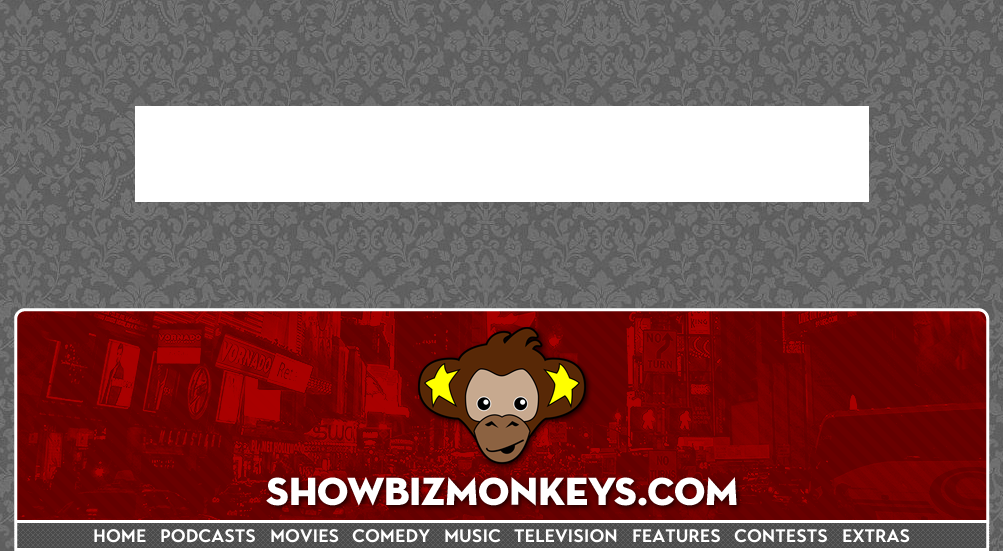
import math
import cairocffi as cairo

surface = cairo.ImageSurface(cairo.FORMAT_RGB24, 1003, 551)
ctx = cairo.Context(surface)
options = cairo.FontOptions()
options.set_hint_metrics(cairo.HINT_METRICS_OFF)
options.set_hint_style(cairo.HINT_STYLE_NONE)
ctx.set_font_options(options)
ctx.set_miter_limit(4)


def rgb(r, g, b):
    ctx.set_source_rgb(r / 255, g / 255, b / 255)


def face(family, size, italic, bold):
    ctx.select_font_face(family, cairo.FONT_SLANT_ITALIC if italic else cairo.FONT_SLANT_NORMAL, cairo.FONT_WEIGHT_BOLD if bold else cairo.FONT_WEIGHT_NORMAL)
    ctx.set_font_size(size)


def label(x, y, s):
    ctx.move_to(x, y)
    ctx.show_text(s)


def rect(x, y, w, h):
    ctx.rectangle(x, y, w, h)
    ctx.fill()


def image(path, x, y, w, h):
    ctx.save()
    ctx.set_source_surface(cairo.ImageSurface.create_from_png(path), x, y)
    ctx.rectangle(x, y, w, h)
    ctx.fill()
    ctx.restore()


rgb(255, 255, 255)
ctx.paint()
image('image0.png', 0, 0, 1003, 551)
rgb(255, 255, 255)
rect(135, 106, 734, 96)
image('image1.png', 14, 308, 976, 215)
rgb(68, 68, 68)
rect(14, 523, 976, 28)
image('image2.png', 14, 523, 976, 28)
face('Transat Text', 18, 0, 1)
rgb(255, 255, 255)
label(93, 542, 'HOME')
label(160, 542, 'PODCASTS')
label(270, 542, 'MOVIES')
label(352, 542, 'COMEDY')
label(444, 542, 'MUSIC')
label(514, 542, 'TELEVISION')
label(632, 542, 'FEATURES')
label(734, 542, 'CONTESTS')
label(842, 542, 'EXTRAS')
surface.write_to_png('render.png')
